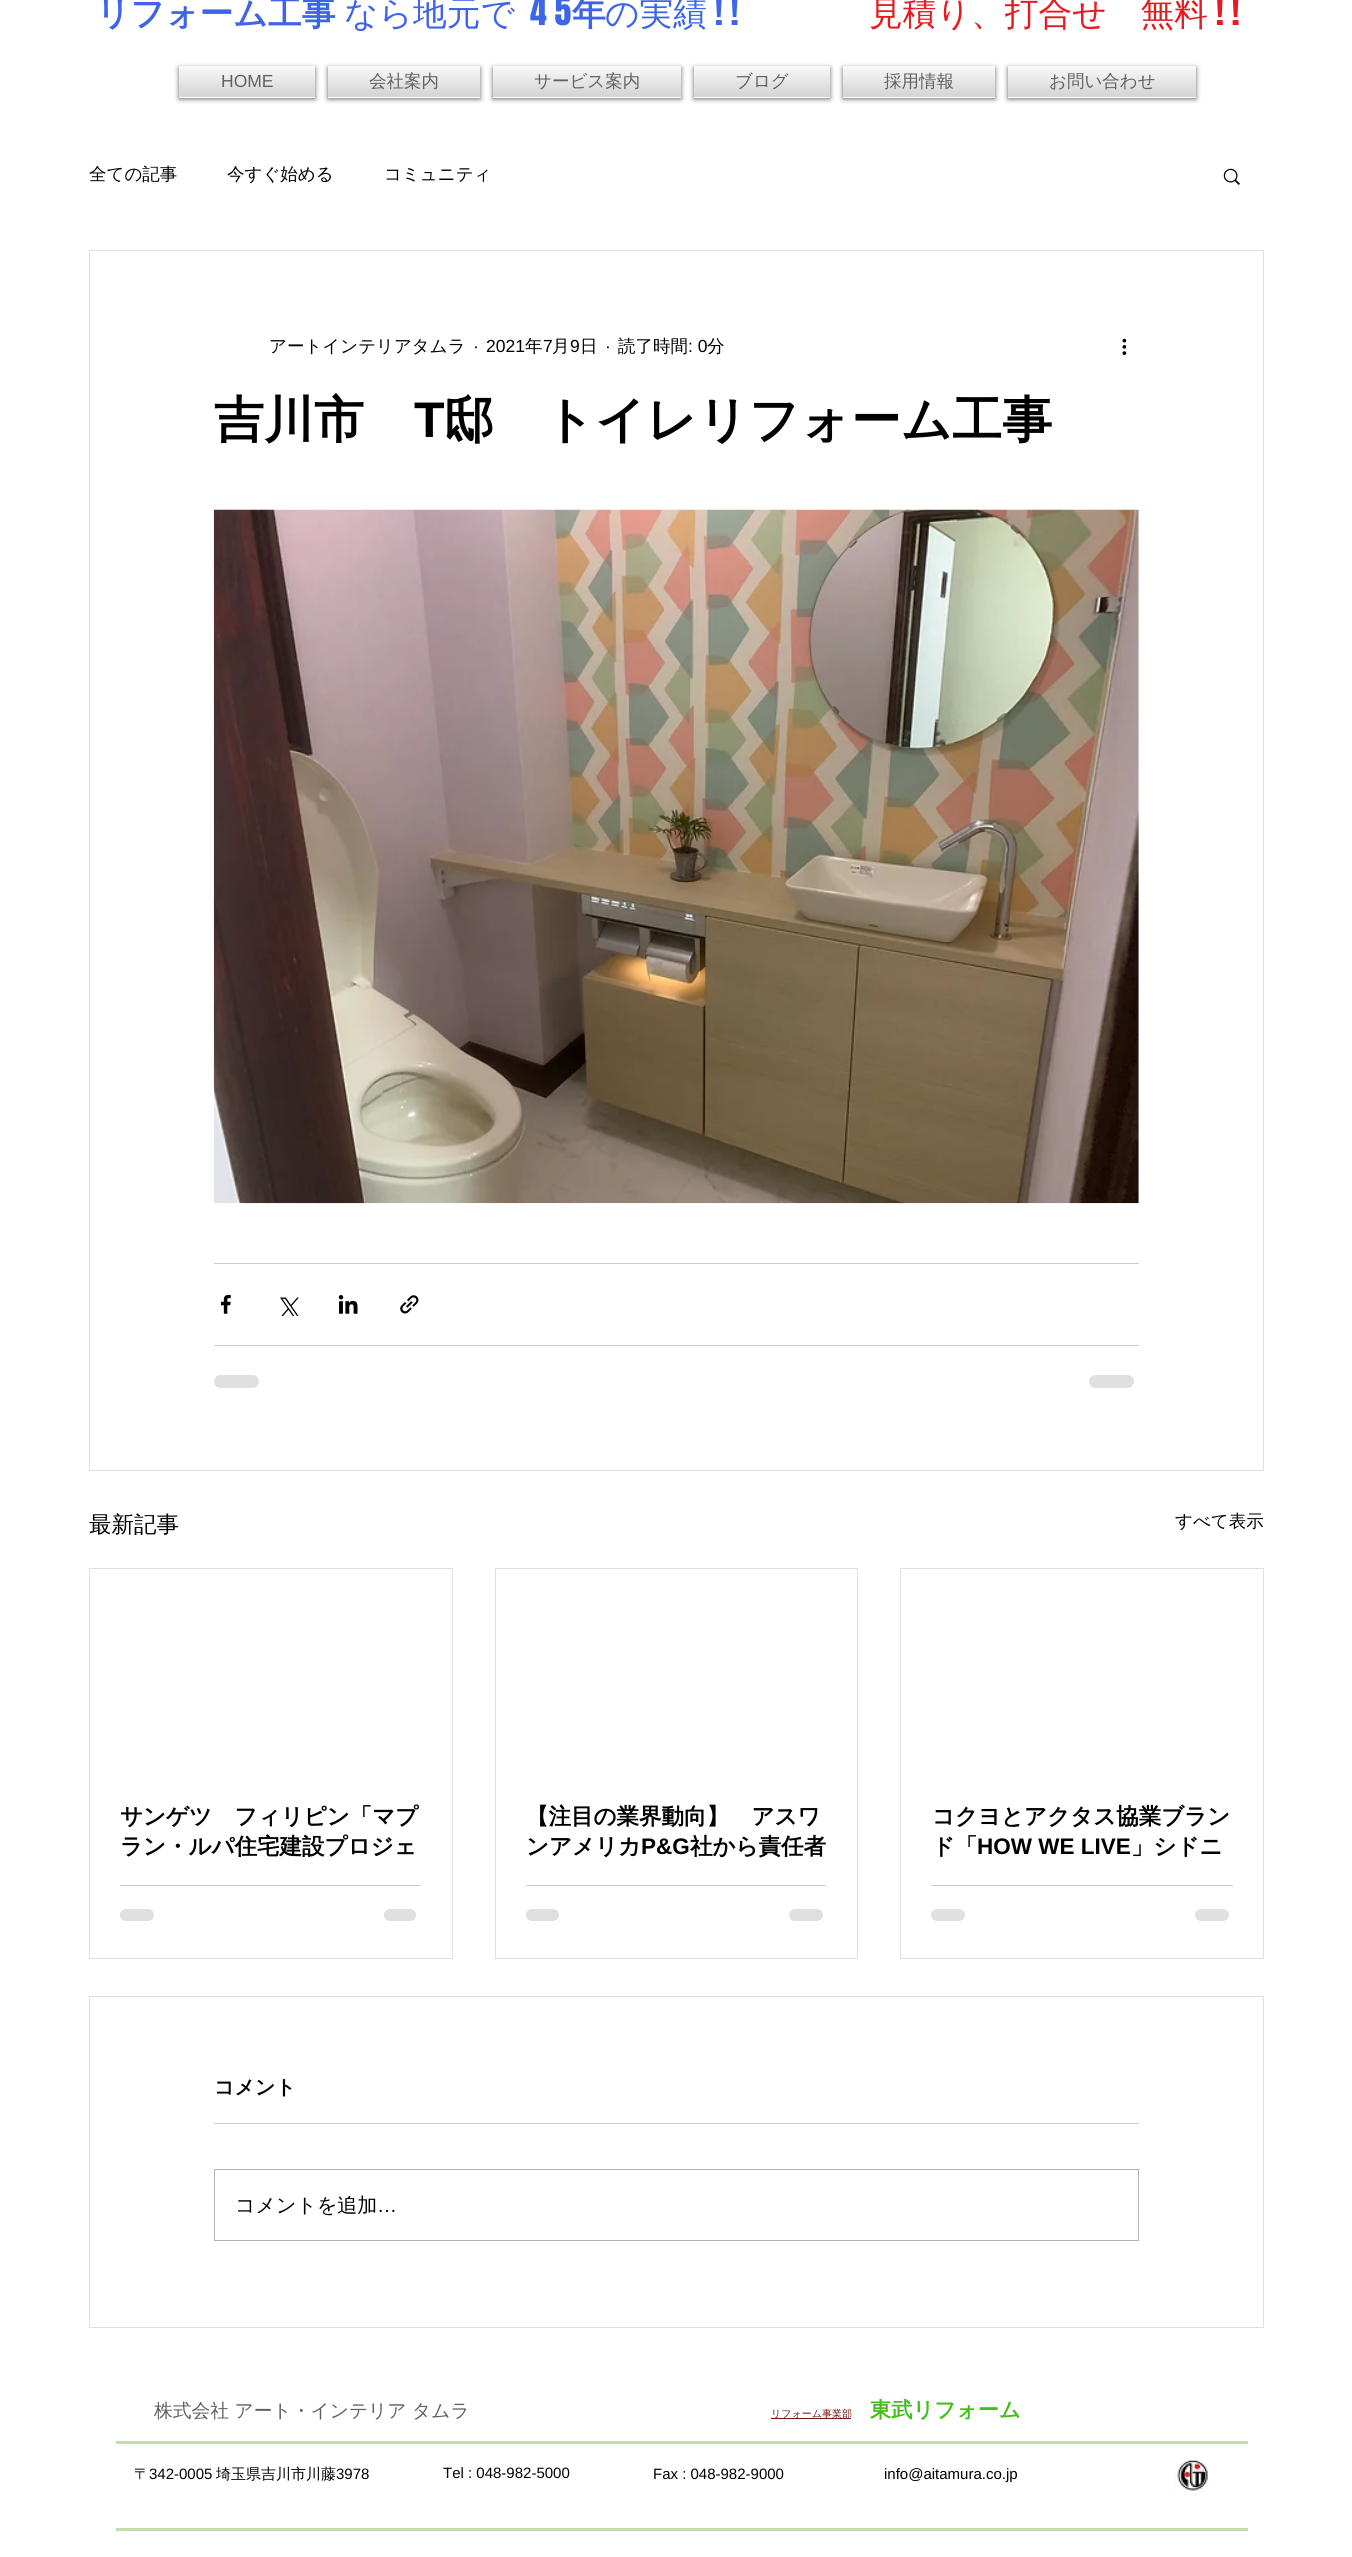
import math
import cairocffi as cairo

surface = cairo.ImageSurface(cairo.FORMAT_RGB24, 1352, 2557)
ctx = cairo.Context(surface)
options = cairo.FontOptions()
options.set_hint_metrics(cairo.HINT_METRICS_OFF)
options.set_hint_style(cairo.HINT_STYLE_NONE)
ctx.set_font_options(options)
ctx.set_miter_limit(4)


def rgb(r, g, b):
    ctx.set_source_rgb(r / 255, g / 255, b / 255)


def face(family, size, italic, bold):
    ctx.select_font_face(family, cairo.FONT_SLANT_ITALIC if italic else cairo.FONT_SLANT_NORMAL, cairo.FONT_WEIGHT_BOLD if bold else cairo.FONT_WEIGHT_NORMAL)
    ctx.set_font_size(size)


def label(x, y, s):
    ctx.move_to(x, y)
    ctx.show_text(s)


def rect(x, y, w, h):
    ctx.rectangle(x, y, w, h)
    ctx.fill()


def rrect(x, y, w, h, r):
    ctx.new_sub_path()
    for i, (u, v) in enumerate([(x + w - r, y + h - r), (x + r, y + h - r), (x + r, y + r), (x + w - r, y + r)]):
        ctx.arc(u, v, r, i * math.pi / 2, (i + 1) * math.pi / 2)
    ctx.close_path()


def soft_shadow(x, y, w, h, r, blur, alpha):
    ctx.push_group_with_content(cairo.CONTENT_ALPHA)
    ctx.set_operator(cairo.OPERATOR_SOURCE)
    for i in range(15, -16, -2):
        e = blur * i / 6
        if min(w, h) + 2 * e > 0:
            ctx.set_source_rgba(0, 0, 0, alpha * math.erfc((i - 1) / 8.5) / 2)
            rrect(x - e, y - e, w + 2 * e, h + 2 * e, max(0, min(r + e + blur * .6, min(w, h) / 2 + e)))
            ctx.fill()
    ctx.mask(ctx.pop_group())


def image(path, x, y, w, h):
    ctx.save()
    ctx.set_source_surface(cairo.ImageSurface.create_from_png(path), x, y)
    ctx.rectangle(x, y, w, h)
    ctx.fill()
    ctx.restore()


rgb(255, 255, 255)
ctx.paint()
face('WenQuanYi Zen Hei', 33.75, 0, 1)
rgb(61, 100, 233)
label(96, 25, 'リフォーム工事')
face('WenQuanYi Zen Hei Medium', 33.75, 0, 0)
label(344, 25, 'なら地元で')
face('Anton', 33.75, 0, 0)
label(530, 25, '4 5')
face('WenQuanYi Zen Hei', 33.75, 0, 1)
label(572, 25, '年')
face('WenQuanYi Zen Hei Medium', 33.75, 0, 0)
label(605, 25, 'の実績')
face('Anton', 33.75, 0, 0)
label(715, 25, '! !')
face('WenQuanYi Zen Hei Medium', 33.75, 0, 0)
rgb(226, 28, 33)
label(869, 25, '見積り、打合せ　無料')
face('Anton', 33.75, 0, 0)
label(1216, 25, '! !')
rgb(0, 0, 0)
soft_shadow(179, 68, 136, 31, 0, 2.5, 0.6)
rgb(255, 255, 255)
rect(179, 66, 136, 32)
image('image0.png', 179, 66, 136, 31)
face('Liberation Sans', 17.5, 0, 0)
rgb(96, 96, 96)
label(221, 87, 'HOME')
rgb(0, 0, 0)
soft_shadow(328, 68, 152, 31, 0, 2.5, 0.6)
rgb(255, 255, 255)
rect(328, 66, 152, 32)
image('image1.png', 327, 66, 153, 31)
face('WenQuanYi Zen Hei Medium', 17.5, 0, 0)
rgb(96, 96, 96)
label(369, 87, '会社案内')
rgb(0, 0, 0)
soft_shadow(493, 68, 188, 31, 0, 2.5, 0.6)
rgb(255, 255, 255)
rect(493, 66, 188, 32)
image('image2.png', 492, 66, 189, 31)
rgb(96, 96, 96)
label(534, 87, 'サービス案内')
rgb(0, 0, 0)
soft_shadow(694, 68, 136, 31, 0, 2.5, 0.6)
rgb(255, 255, 255)
rect(694, 66, 136, 32)
image('image0.png', 694, 66, 136, 31)
rgb(96, 96, 96)
label(735, 87, 'ブログ')
rgb(0, 0, 0)
soft_shadow(843, 68, 152, 31, 0, 2.5, 0.6)
rgb(255, 255, 255)
rect(843, 66, 152, 32)
image('image1.png', 842, 66, 153, 31)
rgb(96, 96, 96)
label(884, 87, '採用情報')
rgb(0, 0, 0)
soft_shadow(1008, 68, 188, 31, 0, 2.5, 0.6)
rgb(255, 255, 255)
rect(1008, 66, 188, 32)
image('image2.png', 1007, 66, 189, 31)
rgb(96, 96, 96)
label(1049, 87, 'お問い合わせ')
rgb(0, 0, 0)
label(89, 180, '全ての記事')
label(227, 180, '今すぐ始める')
label(384, 180, 'コミュニティ')
image('image3.png', 1223, 168, 17, 17)
ctx.rectangle(89.5, 250.5, 1174, 1220)
rgb(224, 224, 224)
ctx.set_line_width(1)
ctx.stroke()
rgb(0, 0, 0)
label(269, 352, 'アートインテリアタムラ')
face('Liberation Sans', 17.5, 0, 0)
label(473, 352, '·')
label(486, 352, '2021')
face('WenQuanYi Zen Hei Medium', 17.5, 0, 0)
label(525, 352, '年')
face('Liberation Sans', 17.5, 0, 0)
label(543, 352, '7')
face('WenQuanYi Zen Hei Medium', 17.5, 0, 0)
label(552, 352, '月')
face('Liberation Sans', 17.5, 0, 0)
label(570, 352, '9')
face('WenQuanYi Zen Hei Medium', 17.5, 0, 0)
label(580, 352, '日')
face('Liberation Sans', 17.5, 0, 0)
label(605, 352, '·')
face('WenQuanYi Zen Hei Medium', 17.5, 0, 0)
label(618, 352, '読了時間')
face('Liberation Sans', 17.5, 0, 0)
label(688, 352, ': 0')
face('WenQuanYi Zen Hei Medium', 17.5, 0, 0)
label(707, 352, '分')
image('image4.png', 1122, 338, 5, 17)
face('WenQuanYi Zen Hei', 50, 0, 1)
label(214, 437, '吉川市')
face('Liberation Sans', 50, 0, 1)
label(414, 437, 'T')
face('WenQuanYi Zen Hei', 50, 0, 1)
label(444, 437, '邸　トイレリフォーム工事')
image('image5.png', 213, 509, 926, 695)
rgb(204, 204, 204)
rect(214, 1263, 925, 1)
image('image6.png', 221, 1295, 10, 19)
image('image7.png', 280, 1297, 19, 19)
image('image8.png', 338, 1295, 20, 19)
image('image9.png', 400, 1295, 19, 19)
rect(214, 1345, 925, 1)
rgb(224, 224, 224)
rrect(214, 1375, 45, 13, 6.5)
ctx.fill()
rrect(1089, 1375, 45, 13, 6.5)
ctx.fill()
face('WenQuanYi Zen Hei Medium', 22.5, 0, 0)
rgb(0, 0, 0)
label(89, 1532, '最新記事')
face('WenQuanYi Zen Hei Medium', 17.5, 0, 0)
label(1175, 1527, 'すべて表示')
ctx.rectangle(89.5, 1568.5, 363, 390)
rgb(224, 224, 224)
ctx.stroke()
face('WenQuanYi Zen Hei', 22.5, 0, 1)
rgb(0, 0, 0)
label(120, 1824, 'サンゲツ　フィリピン「マプ')
label(120, 1854, 'ラン・ルパ住宅建設プロジェ')
rgb(204, 204, 204)
rect(120, 1885, 301, 1)
rgb(224, 224, 224)
rrect(120, 1909, 34, 12, 6)
ctx.fill()
rrect(384, 1909, 32, 12, 6)
ctx.fill()
ctx.rectangle(495.5, 1568.5, 362, 390)
ctx.stroke()
rgb(0, 0, 0)
label(526, 1824, '【注目の業界動向】　アスワ')
label(526, 1854, 'ンアメリカ')
face('Liberation Sans', 22.5, 0, 1)
label(641, 1854, 'P&G')
face('WenQuanYi Zen Hei', 22.5, 0, 1)
label(690, 1854, '社から責任者')
rgb(204, 204, 204)
rect(526, 1885, 300, 1)
rgb(224, 224, 224)
rrect(526, 1909, 33, 12, 6)
ctx.fill()
rrect(789, 1909, 34, 12, 6)
ctx.fill()
ctx.rectangle(900.5, 1568.5, 363, 390)
ctx.stroke()
rgb(0, 0, 0)
label(932, 1824, 'コクヨとアクタス協業ブラン')
label(932, 1854, 'ド「')
face('Liberation Sans', 22.5, 0, 1)
label(977, 1854, 'HOW WE LIVE')
face('WenQuanYi Zen Hei', 22.5, 0, 1)
label(1131, 1854, '」シドニ')
rgb(204, 204, 204)
rect(931, 1885, 302, 1)
rgb(224, 224, 224)
rrect(931, 1909, 34, 12, 6)
ctx.fill()
rrect(1195, 1909, 34, 12, 6)
ctx.fill()
ctx.rectangle(89.5, 1996.5, 1174, 331)
ctx.stroke()
face('WenQuanYi Zen Hei', 20, 0, 1)
rgb(0, 0, 0)
label(214, 2094, 'コメント')
rgb(204, 204, 204)
rect(214, 2123, 925, 1)
ctx.rectangle(214.5, 2169.5, 924, 71)
rgb(179, 179, 179)
ctx.stroke()
face('WenQuanYi Zen Hei Medium', 20, 0, 0)
rgb(0, 0, 0)
label(235, 2212, 'コメントを追加')
face('Liberation Sans', 20, 0, 0)
label(377, 2212, '…')
face('WenQuanYi Zen Hei Medium', 18.75, 0, 0)
rgb(96, 96, 96)
label(154, 2417, '株式会社 アート・インテリア タムラ')
rgb(116, 22, 14)
rect(771, 2418, 80, 1)
face('WenQuanYi Zen Hei Medium', 10, 0, 0)
label(771, 2417, 'リフォーム事業部')
face('WenQuanYi Zen Hei', 21.25, 0, 1)
rgb(65, 190, 24)
label(870, 2417, '東武リフォーム')
rgb(195, 221, 177)
rect(116, 2441, 1132, 3)
face('WenQuanYi Zen Hei Medium', 15, 0, 0)
rgb(0, 0, 0)
label(134, 2479, '〒')
face('Liberation Sans', 15, 0, 0)
label(149, 2479, '342-0005')
face('WenQuanYi Zen Hei Medium', 15, 0, 0)
label(216, 2479, '埼玉県吉川市川藤')
face('Liberation Sans', 15, 0, 0)
label(336, 2479, '3978')
label(443, 2478, 'Tel : 048-982-5000')
label(653, 2479, 'Fax : 048-982-9000')
label(884, 2479, 'info@aitamura.co.jp')
image('image10.png', 1174, 2457, 35, 35)
rgb(195, 221, 177)
rect(116, 2528, 1132, 3)
surface.write_to_png('render.png')
